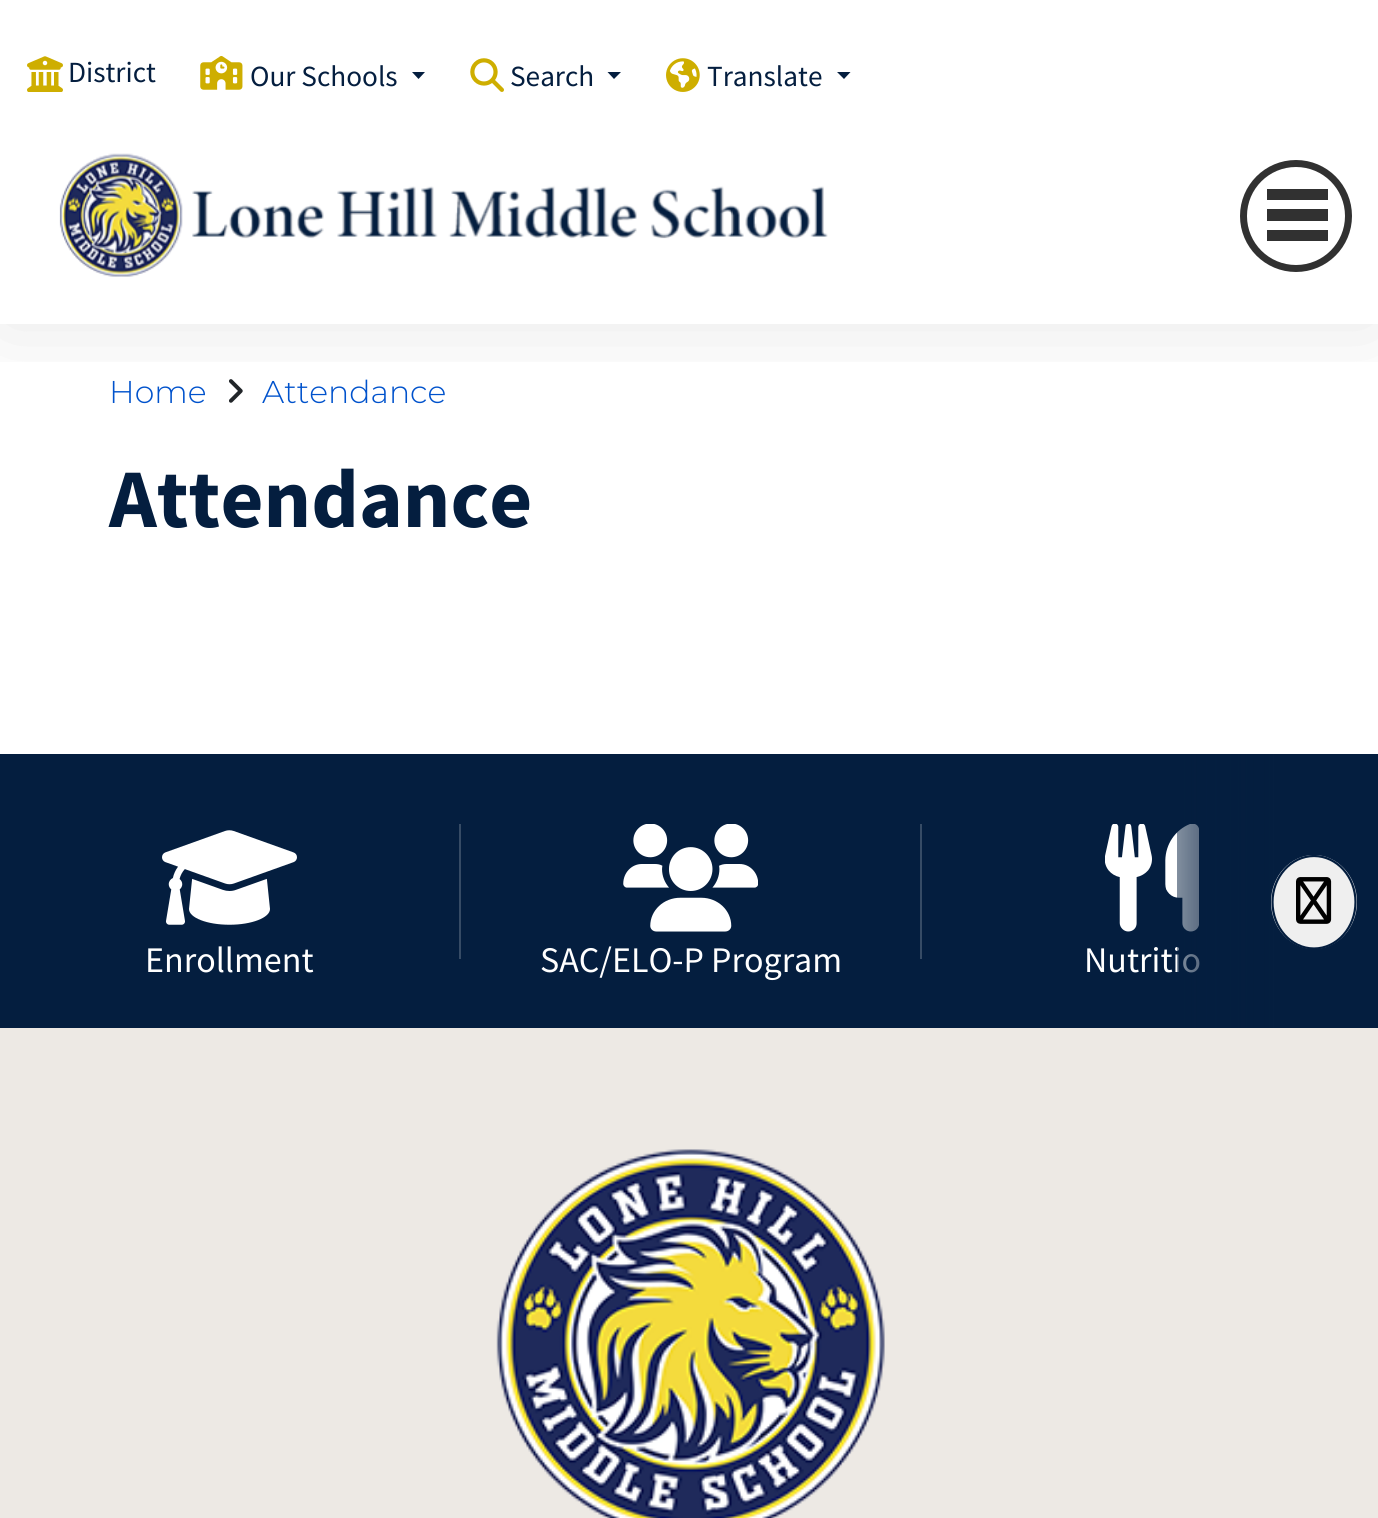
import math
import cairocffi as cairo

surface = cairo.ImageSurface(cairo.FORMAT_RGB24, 1378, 1518)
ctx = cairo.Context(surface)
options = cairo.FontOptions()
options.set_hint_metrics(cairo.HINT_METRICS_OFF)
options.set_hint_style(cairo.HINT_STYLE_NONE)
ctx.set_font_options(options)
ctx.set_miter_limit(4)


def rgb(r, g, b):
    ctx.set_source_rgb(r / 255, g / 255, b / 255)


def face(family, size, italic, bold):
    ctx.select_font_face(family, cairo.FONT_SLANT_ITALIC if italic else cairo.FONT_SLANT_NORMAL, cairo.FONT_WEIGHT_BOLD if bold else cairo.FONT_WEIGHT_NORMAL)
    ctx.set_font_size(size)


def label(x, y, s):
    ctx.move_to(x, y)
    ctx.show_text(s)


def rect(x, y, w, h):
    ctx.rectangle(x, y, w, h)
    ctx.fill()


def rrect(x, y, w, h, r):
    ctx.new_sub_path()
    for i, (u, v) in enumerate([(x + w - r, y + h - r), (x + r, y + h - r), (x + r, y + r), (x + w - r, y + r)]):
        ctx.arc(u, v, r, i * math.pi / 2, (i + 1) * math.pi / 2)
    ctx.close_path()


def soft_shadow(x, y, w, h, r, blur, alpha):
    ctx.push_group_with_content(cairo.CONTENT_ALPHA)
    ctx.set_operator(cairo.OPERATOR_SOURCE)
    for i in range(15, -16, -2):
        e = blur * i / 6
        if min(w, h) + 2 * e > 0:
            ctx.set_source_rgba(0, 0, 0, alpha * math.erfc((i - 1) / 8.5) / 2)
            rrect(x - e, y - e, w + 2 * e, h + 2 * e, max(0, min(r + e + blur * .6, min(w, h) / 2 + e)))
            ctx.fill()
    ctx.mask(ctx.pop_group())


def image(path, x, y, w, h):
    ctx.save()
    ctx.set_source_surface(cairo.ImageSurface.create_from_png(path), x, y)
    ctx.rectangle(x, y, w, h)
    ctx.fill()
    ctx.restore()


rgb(255, 255, 255)
ctx.paint()
image('image5.png', 229, 379, 14, 24)
ctx.save()
ctx.rectangle(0, 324, 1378, 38)
ctx.clip()
rgb(0, 0, 0)
soft_shadow(0, 0, 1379, 324, 0, 45, 0.1)
ctx.restore()
image('image0.png', 27, 56, 36, 36)
face('Source Sans Pro', 29.25, 0, 0)
rgb(4, 30, 63)
label(68, 82, 'District')
image('image1.png', 200, 56, 43, 34)
label(250, 86, 'Our Schools')
ctx.new_path()
ctx.move_to(412, 72)
ctx.line_to(425, 72)
ctx.line_to(418.5, 79)
ctx.close_path()
ctx.fill()
image('image2.png', 470, 58, 34, 34)
label(510, 86, 'Search')
ctx.new_path()
ctx.move_to(607.5, 72)
ctx.line_to(621, 72)
ctx.line_to(614, 79)
ctx.close_path()
ctx.fill()
image('image3.png', 666, 58, 34, 34)
label(707, 86, 'Translate')
ctx.new_path()
ctx.move_to(837, 72)
ctx.line_to(850.5, 72)
ctx.line_to(844, 79)
ctx.close_path()
ctx.fill()
image('image4.png', 59, 153, 769, 124)
ctx.arc(1296, 216, 52.5, 0, 2 * math.pi)
rgb(49, 49, 49)
ctx.set_line_width(7)
ctx.stroke()
rect(1267, 189, 61, 11)
rect(1267, 209, 61, 12)
rect(1267, 230, 61, 11)
face('Montserrat Light', 31.5, 0, 0)
rgb(0, 82, 204)
label(109, 403, 'Home')
label(262, 403, 'Attendance')
face('Source Sans Pro', 83.25, 0, 1)
rgb(4, 30, 63)
label(109, 527, 'Attendance')
rect(0, 754, 1273, 274)
image('image9.png', 1105, 824, 94, 108)
face('Source Sans Pro', 36, 0, 0)
rgb(255, 255, 255)
label(1084, 972, 'Nutritio')
gradient = cairo.LinearGradient(1177, 891, 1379, 891)
gradient.add_color_stop_rgba(0, 0.016, 0.118, 0.247, 0.5)
gradient.add_color_stop_rgba(0.19, 0.016, 0.118, 0.247, 0.75)
gradient.add_color_stop_rgba(0.48, 0.016, 0.118, 0.247, 1)
gradient.add_color_stop_rgba(1, 0.016, 0.118, 0.247, 1)
ctx.set_source(gradient)
rect(1177, 754, 201, 274)
rgb(239, 239, 239)
ctx.new_path()
ctx.move_to(1314, 855)
ctx.curve_to(1337.5, 855, 1357, 876, 1357, 902)
ctx.curve_to(1357, 928, 1337.5, 949, 1314, 949)
ctx.curve_to(1290.5, 949, 1271, 928, 1271, 902)
ctx.curve_to(1271, 876, 1290.5, 855, 1314, 855)
ctx.close_path()
ctx.fill()
ctx.new_path()
ctx.move_to(1314, 856)
ctx.curve_to(1337, 856, 1355.5, 877, 1355.5, 902)
ctx.curve_to(1355.5, 927.5, 1337, 948.5, 1314, 948.5)
ctx.curve_to(1291, 948.5, 1272.5, 927.5, 1272.5, 902)
ctx.curve_to(1272.5, 877, 1291, 856, 1314, 856)
ctx.close_path()
rgb(4, 30, 63)
ctx.set_line_width(2.2)
ctx.stroke()
image('image6.png', 1296, 877, 36, 47)
rgb(54, 75, 101)
rect(459, 824, 2, 135)
image('image7.png', 162, 830, 135, 95)
rgb(255, 255, 255)
label(145, 972, 'Enrollment')
rgb(54, 75, 101)
rect(920, 824, 2, 135)
image('image8.png', 623, 824, 135, 108)
rgb(255, 255, 255)
label(540, 972, 'SAC/ELO-P Program')
rgb(237, 233, 228)
rect(0, 1028, 1378, 490)
image('image10.png', 496, 1149, 389, 369)
surface.write_to_png('render.png')
